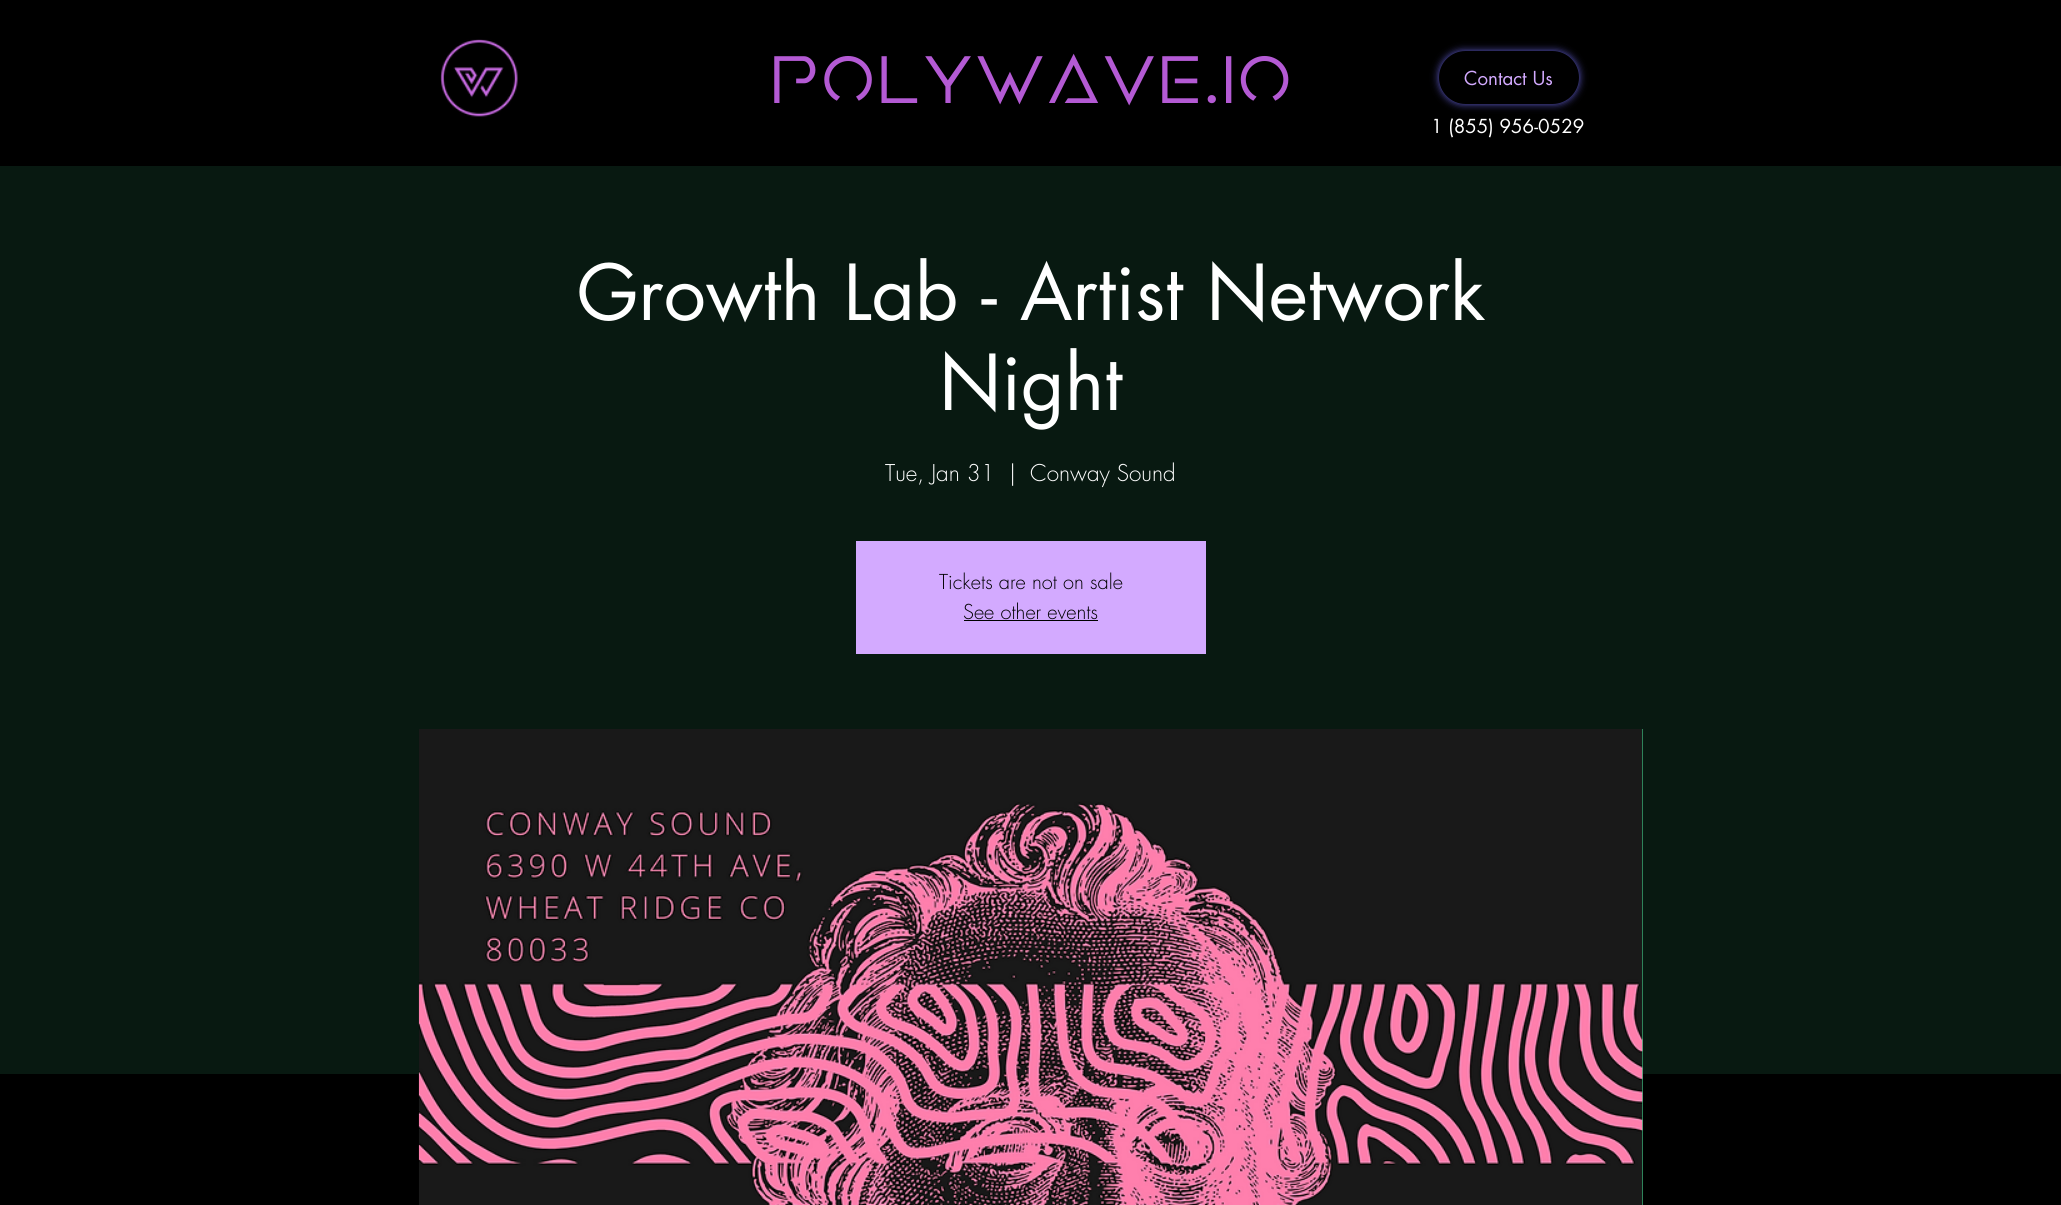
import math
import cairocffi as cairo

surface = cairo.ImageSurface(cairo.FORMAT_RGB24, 2061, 1205)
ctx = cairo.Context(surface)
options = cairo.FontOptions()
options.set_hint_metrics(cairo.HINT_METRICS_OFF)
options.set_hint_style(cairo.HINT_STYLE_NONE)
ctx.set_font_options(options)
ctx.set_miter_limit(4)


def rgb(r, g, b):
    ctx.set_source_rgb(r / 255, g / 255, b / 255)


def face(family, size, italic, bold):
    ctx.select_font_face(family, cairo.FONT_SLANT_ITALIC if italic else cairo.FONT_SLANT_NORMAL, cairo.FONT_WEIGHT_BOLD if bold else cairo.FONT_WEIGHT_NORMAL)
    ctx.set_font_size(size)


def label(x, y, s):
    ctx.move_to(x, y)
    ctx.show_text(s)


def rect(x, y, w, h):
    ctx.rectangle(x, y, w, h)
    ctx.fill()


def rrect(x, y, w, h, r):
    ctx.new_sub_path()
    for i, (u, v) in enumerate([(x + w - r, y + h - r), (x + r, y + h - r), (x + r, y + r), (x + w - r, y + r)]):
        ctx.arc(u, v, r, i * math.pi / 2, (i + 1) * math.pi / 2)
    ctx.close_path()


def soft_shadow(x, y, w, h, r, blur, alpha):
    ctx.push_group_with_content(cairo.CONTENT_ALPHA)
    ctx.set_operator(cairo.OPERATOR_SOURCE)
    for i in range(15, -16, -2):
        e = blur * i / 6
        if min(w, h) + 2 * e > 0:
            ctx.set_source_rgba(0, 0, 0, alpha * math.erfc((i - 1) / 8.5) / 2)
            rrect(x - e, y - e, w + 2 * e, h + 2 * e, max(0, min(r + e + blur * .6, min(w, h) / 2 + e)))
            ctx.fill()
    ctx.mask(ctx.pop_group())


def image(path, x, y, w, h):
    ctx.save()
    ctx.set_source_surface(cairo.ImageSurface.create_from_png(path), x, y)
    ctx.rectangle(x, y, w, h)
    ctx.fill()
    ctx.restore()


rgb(0, 0, 0)
ctx.paint()
image('image0.png', 440, 39, 78, 78)
face('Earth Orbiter', 75, 0, 0)
rgb(180, 90, 212)
label(769, 103, 'Polywave.io')
rgb(95, 91, 205)
soft_shadow(1439, 51, 140, 53, 26.5, 4, 1)
rgb(0, 0, 0)
rrect(1439, 51, 140, 53, 26.5)
ctx.fill()
face('futura', 18.75, 0, 0)
rgb(211, 170, 255)
label(1464, 85, 'Contact Us')
rgb(255, 255, 255)
label(1431, 133, '1 (855) 956-0529')
rgb(8, 25, 17)
rect(0, 166, 2061, 908)
face('futura', 75, 0, 0)
rgb(255, 255, 255)
label(577, 320, 'Growth Lab - Artist Network')
label(939, 410, 'Night')
face('futura Light', 22.5, 0, 0)
label(885, 481, 'Tue, Jan 31')
label(1009, 481, '|')
label(1030, 481, 'Conway Sound')
rgb(211, 170, 255)
rect(856, 541, 350, 113)
face('futura Light', 20, 0, 0)
rgb(0, 0, 0)
label(939, 589, 'Tickets are not on sale')
label(963, 619, 'See other events')
rect(964, 620, 134, 1)
rgb(53, 167, 112)
rect(1642, 729, 1, 476)
image('image1.png', 418, 729, 1225, 476)
surface.write_to_png('render.png')
